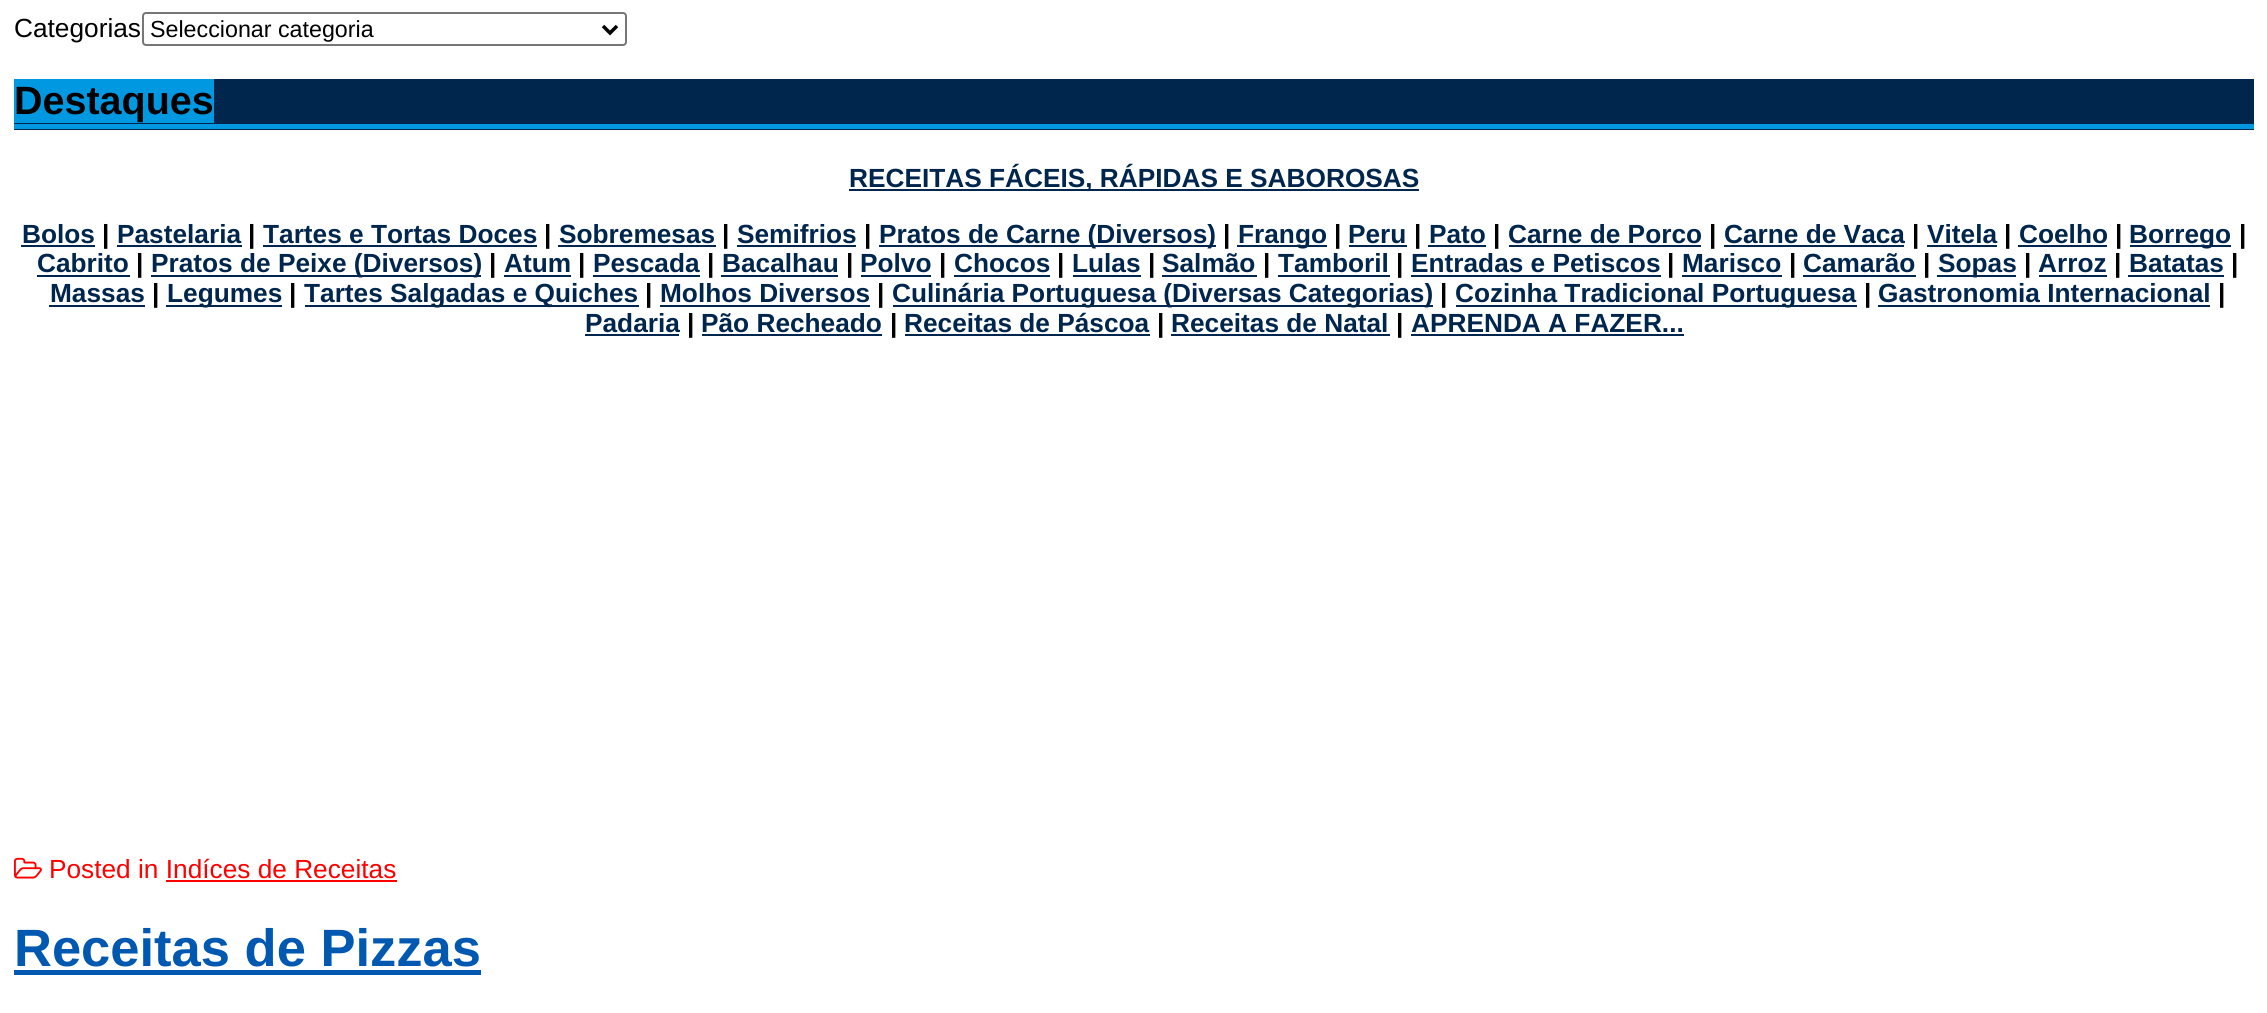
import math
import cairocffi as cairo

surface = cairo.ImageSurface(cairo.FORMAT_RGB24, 2267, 1013)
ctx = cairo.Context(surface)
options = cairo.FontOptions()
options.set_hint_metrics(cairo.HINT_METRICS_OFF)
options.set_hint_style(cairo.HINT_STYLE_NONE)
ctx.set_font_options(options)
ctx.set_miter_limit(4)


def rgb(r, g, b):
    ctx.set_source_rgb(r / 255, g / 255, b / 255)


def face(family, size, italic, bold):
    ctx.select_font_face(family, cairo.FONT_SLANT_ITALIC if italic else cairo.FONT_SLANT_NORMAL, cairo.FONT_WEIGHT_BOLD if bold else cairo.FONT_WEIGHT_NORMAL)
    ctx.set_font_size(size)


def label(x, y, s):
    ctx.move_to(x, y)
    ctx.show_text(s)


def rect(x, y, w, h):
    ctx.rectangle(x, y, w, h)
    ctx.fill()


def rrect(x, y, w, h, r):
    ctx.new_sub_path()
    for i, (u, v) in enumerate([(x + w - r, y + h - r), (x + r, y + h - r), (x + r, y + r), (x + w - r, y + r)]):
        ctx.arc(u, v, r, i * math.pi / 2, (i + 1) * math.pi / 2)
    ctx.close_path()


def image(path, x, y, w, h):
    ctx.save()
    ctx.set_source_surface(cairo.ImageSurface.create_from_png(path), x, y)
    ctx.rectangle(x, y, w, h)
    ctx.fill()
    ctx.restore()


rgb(255, 255, 255)
ctx.paint()
face('Liberation Sans', 26.25, 0, 0)
rgb(0, 0, 0)
label(14, 37, 'Categorias')
rrect(143, 13, 483, 32, 3)
rgb(118, 118, 118)
ctx.stroke()
ctx.new_path()
ctx.move_to(603, 26)
ctx.line_to(610, 33)
ctx.line_to(617, 26)
rgb(0, 0, 0)
ctx.set_line_width(3.5)
ctx.stroke()
face('Liberation Sans', 23.25, 0, 0)
label(150, 37, 'Seleccionar categoria')
rgb(0, 38, 77)
rect(14, 79, 2240, 51)
rgb(0, 152, 225)
rect(14, 124, 2240, 5)
rect(14, 79, 200, 44)
face('Liberation Sans', 39.5, 0, 1)
rgb(0, 0, 0)
label(14, 114, 'Destaques')
rgb(0, 38, 77)
rect(849, 189, 570, 2)
face('Liberation Sans', 26.25, 0, 1)
label(849, 187, 'RECEITAS FÁCEIS, RÁPIDAS E SABOROSAS')
label(22, 243, 'Bolos')
rect(21, 245, 74, 2)
rgb(0, 0, 0)
label(102, 243, '|')
rgb(0, 38, 77)
label(117, 243, 'Pastelaria')
rect(117, 245, 125, 2)
rgb(0, 0, 0)
label(248, 243, '|')
rgb(0, 38, 77)
label(263, 243, 'Tartes e Tortas Doces')
rect(263, 245, 274, 2)
rgb(0, 0, 0)
label(544, 243, '|')
rgb(0, 38, 77)
label(559, 243, 'Sobremesas')
rect(558, 245, 158, 2)
rgb(0, 0, 0)
label(722, 243, '|')
rgb(0, 38, 77)
label(737, 243, 'Semifrios')
rect(737, 245, 119, 2)
rgb(0, 0, 0)
label(864, 243, '|')
rgb(0, 38, 77)
rect(879, 245, 337, 2)
label(879, 243, 'Pratos de Carne (Diversos)')
rgb(0, 0, 0)
label(1223, 243, '|')
rgb(0, 38, 77)
rect(1237, 245, 90, 2)
label(1238, 243, 'Frango')
rgb(0, 0, 0)
label(1334, 243, '|')
rgb(0, 38, 77)
label(1348, 243, 'Peru')
rect(1349, 245, 58, 2)
rgb(0, 0, 0)
label(1414, 243, '|')
rgb(0, 38, 77)
label(1429, 243, 'Pato')
rect(1428, 245, 58, 2)
rgb(0, 0, 0)
label(1493, 243, '|')
rgb(0, 38, 77)
label(1508, 243, 'Carne de Porco')
rect(1509, 245, 192, 2)
rgb(0, 0, 0)
label(1709, 243, '|')
rgb(0, 38, 77)
label(1724, 243, 'Carne de Vaca')
rect(1724, 245, 180, 2)
rgb(0, 0, 0)
label(1912, 243, '|')
rgb(0, 38, 77)
label(1927, 243, 'Vitela')
rect(1927, 245, 70, 2)
rgb(0, 0, 0)
label(2004, 243, '|')
rgb(0, 38, 77)
label(2019, 243, 'Coelho')
rect(2018, 245, 89, 2)
rgb(0, 0, 0)
label(2115, 243, '|')
rgb(0, 38, 77)
rect(2130, 245, 101, 2)
label(2129, 243, 'Borrego')
rgb(0, 0, 0)
label(2239, 243, '|')
rgb(0, 38, 77)
label(37, 272, 'Cabrito')
rect(37, 275, 93, 2)
rgb(0, 0, 0)
label(136, 272, '|')
rgb(0, 38, 77)
rect(151, 275, 330, 2)
label(151, 272, 'Pratos de Peixe (Diversos)')
rgb(0, 0, 0)
label(489, 272, '|')
rgb(0, 38, 77)
label(504, 272, 'Atum')
rect(504, 275, 67, 2)
rgb(0, 0, 0)
label(578, 272, '|')
rgb(0, 38, 77)
label(593, 272, 'Pescada')
rect(593, 275, 107, 2)
rgb(0, 0, 0)
label(707, 272, '|')
rgb(0, 38, 77)
label(722, 272, 'Bacalhau')
rect(721, 275, 117, 2)
rgb(0, 0, 0)
label(846, 272, '|')
rgb(0, 38, 77)
label(860, 272, 'Polvo')
rect(861, 275, 70, 2)
rgb(0, 0, 0)
label(939, 272, '|')
rgb(0, 38, 77)
label(954, 272, 'Chocos')
rect(954, 275, 96, 2)
rgb(0, 0, 0)
label(1057, 272, '|')
rgb(0, 38, 77)
label(1072, 272, 'Lulas')
rect(1073, 275, 68, 2)
rgb(0, 0, 0)
label(1148, 272, '|')
rgb(0, 38, 77)
label(1162, 272, 'Salmão')
rect(1162, 275, 95, 2)
rgb(0, 0, 0)
label(1263, 272, '|')
rgb(0, 38, 77)
label(1278, 272, 'Tamboril')
rect(1278, 275, 112, 2)
rgb(0, 0, 0)
label(1396, 272, '|')
rgb(0, 38, 77)
label(1411, 272, 'Entradas e Petiscos')
rect(1411, 275, 250, 2)
rgb(0, 0, 0)
label(1667, 272, '|')
rgb(0, 38, 77)
label(1682, 272, 'Marisco')
rect(1682, 275, 100, 2)
rgb(0, 0, 0)
label(1789, 272, '|')
rgb(0, 38, 77)
label(1803, 272, 'Camarão')
rect(1803, 275, 113, 2)
rgb(0, 0, 0)
label(1923, 272, '|')
rgb(0, 38, 77)
rect(1937, 275, 79, 2)
label(1938, 272, 'Sopas')
rgb(0, 0, 0)
label(2024, 272, '|')
rgb(0, 38, 77)
label(2038, 272, 'Arroz')
rect(2039, 275, 68, 2)
rgb(0, 0, 0)
label(2114, 272, '|')
rgb(0, 38, 77)
label(2129, 272, 'Batatas')
rect(2128, 275, 96, 2)
rgb(0, 0, 0)
label(2231, 272, '|')
rgb(0, 38, 77)
label(50, 302, 'Massas')
rect(49, 305, 96, 2)
rgb(0, 0, 0)
label(152, 302, '|')
rgb(0, 38, 77)
rect(166, 305, 116, 2)
label(167, 302, 'Legumes')
rgb(0, 0, 0)
label(289, 302, '|')
rgb(0, 38, 77)
rect(305, 305, 334, 2)
label(304, 302, 'Tartes Salgadas e Quiches')
rgb(0, 0, 0)
label(645, 302, '|')
rgb(0, 38, 77)
label(660, 302, 'Molhos Diversos')
rect(660, 305, 210, 2)
rgb(0, 0, 0)
label(877, 302, '|')
rgb(0, 38, 77)
rect(893, 305, 540, 2)
label(892, 302, 'Culinária Portuguesa (Diversas Categorias)')
rgb(0, 0, 0)
label(1440, 302, '|')
rgb(0, 38, 77)
rect(1456, 305, 401, 2)
label(1455, 302, 'Cozinha Tradicional Portuguesa')
rgb(0, 0, 0)
label(1864, 302, '|')
rgb(0, 38, 77)
label(1878, 302, 'Gastronomia Internacional')
rect(1878, 305, 332, 2)
rgb(0, 0, 0)
label(2218, 302, '|')
rgb(0, 38, 77)
label(585, 332, 'Padaria')
rect(585, 334, 94, 2)
rgb(0, 0, 0)
label(687, 332, '|')
rgb(0, 38, 77)
label(701, 332, 'Pão Recheado')
rect(702, 334, 180, 2)
rgb(0, 0, 0)
label(890, 332, '|')
rgb(0, 38, 77)
label(904, 332, 'Receitas de Páscoa')
rect(905, 334, 245, 2)
rgb(0, 0, 0)
label(1157, 332, '|')
rgb(0, 38, 77)
label(1171, 332, 'Receitas de Natal')
rect(1171, 334, 219, 2)
rgb(0, 0, 0)
label(1396, 332, '|')
rgb(0, 38, 77)
label(1411, 332, 'APRENDA A FAZER...')
rect(1411, 334, 273, 2)
image('image0.png', 14, 857, 28, 22)
face('Liberation Sans', 26.25, 0, 0)
rgb(255, 0, 0)
label(49, 878, 'Posted in Indíces de Receitas')
rect(166, 880, 231, 2)
face('Liberation Sans', 52.5, 0, 1)
rgb(0, 88, 176)
label(14, 966, 'Receitas de Pizzas')
rect(14, 970, 467, 5)
surface.write_to_png('render.png')
